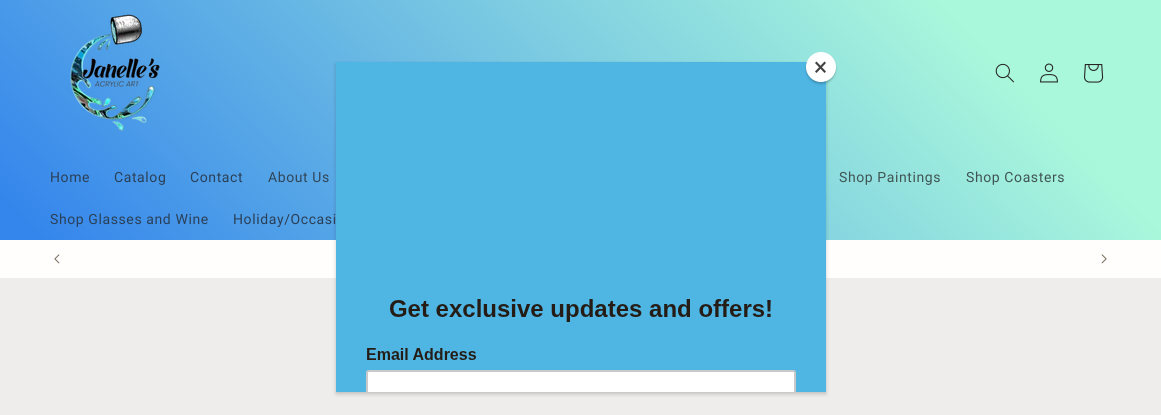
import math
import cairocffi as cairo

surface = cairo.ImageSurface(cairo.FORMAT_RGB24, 1161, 415)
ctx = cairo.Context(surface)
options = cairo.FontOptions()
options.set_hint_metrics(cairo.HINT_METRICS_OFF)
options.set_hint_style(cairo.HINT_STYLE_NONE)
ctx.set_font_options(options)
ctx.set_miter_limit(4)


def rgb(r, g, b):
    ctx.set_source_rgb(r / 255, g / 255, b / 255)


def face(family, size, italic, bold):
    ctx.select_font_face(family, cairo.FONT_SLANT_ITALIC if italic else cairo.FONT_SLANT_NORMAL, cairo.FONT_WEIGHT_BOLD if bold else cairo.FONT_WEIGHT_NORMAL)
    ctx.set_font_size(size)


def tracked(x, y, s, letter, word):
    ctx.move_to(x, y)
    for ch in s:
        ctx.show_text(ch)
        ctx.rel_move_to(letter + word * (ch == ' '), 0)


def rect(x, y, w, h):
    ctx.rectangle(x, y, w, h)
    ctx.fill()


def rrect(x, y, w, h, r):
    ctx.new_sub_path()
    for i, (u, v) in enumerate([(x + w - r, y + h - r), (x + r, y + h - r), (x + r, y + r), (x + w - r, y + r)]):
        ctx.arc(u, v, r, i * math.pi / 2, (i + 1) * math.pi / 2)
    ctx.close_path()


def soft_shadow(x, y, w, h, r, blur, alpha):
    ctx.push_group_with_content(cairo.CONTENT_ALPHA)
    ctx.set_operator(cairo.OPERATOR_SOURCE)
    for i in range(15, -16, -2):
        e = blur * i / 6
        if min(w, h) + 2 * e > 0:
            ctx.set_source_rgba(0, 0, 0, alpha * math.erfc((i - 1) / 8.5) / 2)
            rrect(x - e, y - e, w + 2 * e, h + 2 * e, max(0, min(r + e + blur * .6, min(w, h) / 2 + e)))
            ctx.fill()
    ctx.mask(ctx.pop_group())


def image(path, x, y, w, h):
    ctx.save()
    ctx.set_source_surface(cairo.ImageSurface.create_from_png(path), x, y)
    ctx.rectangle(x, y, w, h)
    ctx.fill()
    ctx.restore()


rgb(239, 236, 236)
ctx.paint()
gradient = cairo.LinearGradient(176, 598, 985, -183)
gradient.add_color_stop_rgba(0.13, 0.204, 0.522, 0.925, 1)
gradient.add_color_stop_rgba(0.86, 0.667, 0.973, 0.859, 1)
ctx.set_source(gradient)
rect(0, 0, 1161, 240)
rgb(255, 254, 253)
rect(0, 240, 1161, 38)
rgb(0, 0, 0)
soft_shadow(336, 64, 490, 330, 0, 2, 0.2)
image('image0.png', 336, 62, 490, 330)
soft_shadow(806, 54, 30, 30, 15, 1, 0.2)
rgb(255, 255, 255)
ctx.arc(821, 67, 15, 0, 2 * math.pi)
ctx.fill()
rgb(65, 65, 65)
ctx.new_path()
ctx.move_to(824.5, 61.5)
ctx.line_to(826, 63)
ctx.line_to(816.5, 73)
ctx.line_to(815, 71.5)
ctx.close_path()
ctx.fill()
ctx.new_path()
ctx.move_to(815, 63)
ctx.line_to(816.5, 61.5)
ctx.line_to(826, 71.5)
ctx.line_to(824.5, 73)
ctx.close_path()
ctx.fill()
image('image1.png', 70, 14, 90, 117)
image('image2.png', 995, 63, 19, 20)
image('image3.png', 1040, 63, 18, 20)
image('image4.png', 1084, 64, 20, 19)
face('Roboto', 14, 0, 0)
rgb(43, 63, 86)
tracked(50, 182, 'Home', 0.6, 0)
tracked(114, 182, 'Catalog', 0.6, 0)
tracked(190, 182, 'Contact', 0.6, 0)
rgb(49, 69, 86)
tracked(268, 182, 'About Us', 0.6, 0)
rgb(64, 84, 83)
tracked(839, 182, 'Shop Paintings', 0.6, 0)
tracked(966, 182, 'Shop Coasters', 0.6, 0)
rgb(43, 63, 86)
tracked(50, 224, 'Shop Glasses and Wine', 0.6, 0)
tracked(233, 224, 'Holiday/Occasi', 0.6, 0)
image('image5.png', 54, 254, 6, 10)
image('image6.png', 1101, 254, 6, 10)
surface.write_to_png('render.png')
